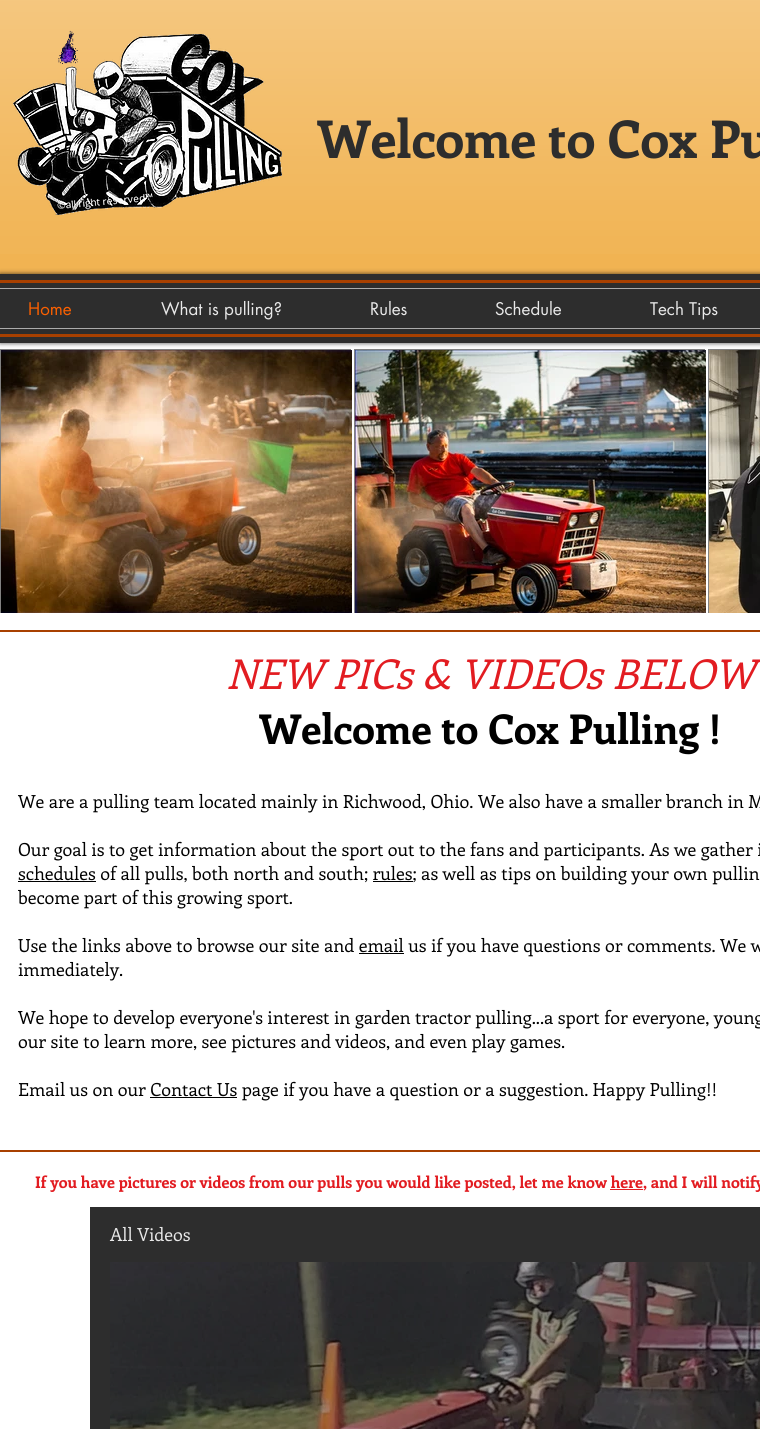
import math
import cairocffi as cairo

surface = cairo.ImageSurface(cairo.FORMAT_RGB24, 760, 1429)
ctx = cairo.Context(surface)
options = cairo.FontOptions()
options.set_hint_metrics(cairo.HINT_METRICS_OFF)
options.set_hint_style(cairo.HINT_STYLE_NONE)
ctx.set_font_options(options)
ctx.set_miter_limit(4)


def rgb(r, g, b):
    ctx.set_source_rgb(r / 255, g / 255, b / 255)


def face(family, size, italic, bold):
    ctx.select_font_face(family, cairo.FONT_SLANT_ITALIC if italic else cairo.FONT_SLANT_NORMAL, cairo.FONT_WEIGHT_BOLD if bold else cairo.FONT_WEIGHT_NORMAL)
    ctx.set_font_size(size)


def label(x, y, s):
    ctx.move_to(x, y)
    ctx.show_text(s)


def rect(x, y, w, h):
    ctx.rectangle(x, y, w, h)
    ctx.fill()


def rrect(x, y, w, h, r):
    ctx.new_sub_path()
    for i, (u, v) in enumerate([(x + w - r, y + h - r), (x + r, y + h - r), (x + r, y + r), (x + w - r, y + r)]):
        ctx.arc(u, v, r, i * math.pi / 2, (i + 1) * math.pi / 2)
    ctx.close_path()


def soft_shadow(x, y, w, h, r, blur, alpha):
    ctx.push_group_with_content(cairo.CONTENT_ALPHA)
    ctx.set_operator(cairo.OPERATOR_SOURCE)
    for i in range(15, -16, -2):
        e = blur * i / 6
        if min(w, h) + 2 * e > 0:
            ctx.set_source_rgba(0, 0, 0, alpha * math.erfc((i - 1) / 8.5) / 2)
            rrect(x - e, y - e, w + 2 * e, h + 2 * e, max(0, min(r + e + blur * .6, min(w, h) / 2 + e)))
            ctx.fill()
    ctx.mask(ctx.pop_group())


def image(path, x, y, w, h):
    ctx.save()
    ctx.set_source_surface(cairo.ImageSurface.create_from_png(path), x, y)
    ctx.rectangle(x, y, w, h)
    ctx.fill()
    ctx.restore()


rgb(255, 255, 255)
ctx.paint()
rgb(241, 179, 82)
rect(0, 0, 760, 274)
image('image0.png', 0, 0, 760, 254)
image('image2.png', 13, 34, 269, 181)
image('image1.png', 58, 30, 20, 34)
face('Enriqueta', 52, 0, 1)
rgb(45, 45, 45)
label(317, 158, 'Welcome to Cox Pu')
rgb(0, 0, 0)
soft_shadow(0, 274, 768, 69, 0, 2.5, 0.7)
rgb(45, 45, 45)
rect(0, 274, 760, 69)
rgb(168, 64, 0)
rect(0, 280, 760, 3)
rect(0, 334, 760, 3)
rgb(171, 171, 171)
rect(0, 288, 760, 1)
rect(0, 328, 760, 1)
face('futura', 17, 0, 0)
rgb(252, 96, 0)
label(28, 315, 'Home')
rgb(232, 232, 232)
label(161, 315, 'What is pulling?')
label(370, 315, 'Rules')
label(495, 315, 'Schedule')
label(650, 315, 'Tech Tips')
rgb(129, 129, 129)
rect(0, 349, 351, 264)
image('image3.png', 1, 350, 351, 263)
rect(354, 349, 351, 264)
image('image4.png', 355, 350, 351, 263)
rect(708, 349, 52, 264)
image('image5.png', 709, 350, 51, 263)
rgb(168, 64, 0)
rect(0, 630, 760, 2)
face('Enriqueta', 41, 1, 0)
rgb(226, 28, 33)
label(226, 689, 'NEW PICs & VIDEOs BELOW')
face('Enriqueta', 41, 0, 1)
rgb(0, 0, 0)
label(259, 744, 'Welcome to Cox Pulling !')
face('Enriqueta', 18, 0, 0)
label(18, 808, 'We are a pulling team located mainly in Richwood, Ohio. We also have a smaller branch in M')
label(18, 856, 'Our goal is to get information about the sport out to the fans and participants. As we gather i')
rect(18, 881, 78, 1)
label(18, 880, 'schedules of all pulls, both north and south; rules; as well as tips on building your own pullin')
rect(373, 881, 40, 1)
label(18, 904, 'become part of this growing sport.')
label(18, 952, 'Use the links above to browse our site and email us if you have questions or comments. We w')
rect(359, 953, 45, 1)
label(18, 976, 'immediately.')
label(18, 1024, 'We hope to develop everyone\'s interest in garden tractor pulling...a sport for everyone, young')
label(18, 1048, 'our site to learn more, see pictures and videos, and even play games.')
label(18, 1096, 'Email us on our Contact Us page if you have a question or a suggestion. Happy Pulling!!')
rect(150, 1097, 87, 1)
rgb(168, 64, 0)
rect(0, 1150, 760, 2)
face('Enriqueta', 16, 0, 1)
rgb(226, 28, 33)
label(35, 1188, 'If you have pictures or videos from our pulls you would like posted, let me know here, and I will notify')
rect(610, 1189, 33, 1)
rgb(45, 45, 45)
rect(90, 1207, 670, 222)
face('Enriqueta', 18, 0, 0)
rgb(232, 232, 232)
label(110, 1241, 'All Videos')
image('image6.png', 110, 1262, 650, 167)
image('image7.png', 310, 1262, 450, 160)
surface.write_to_png('render.png')
